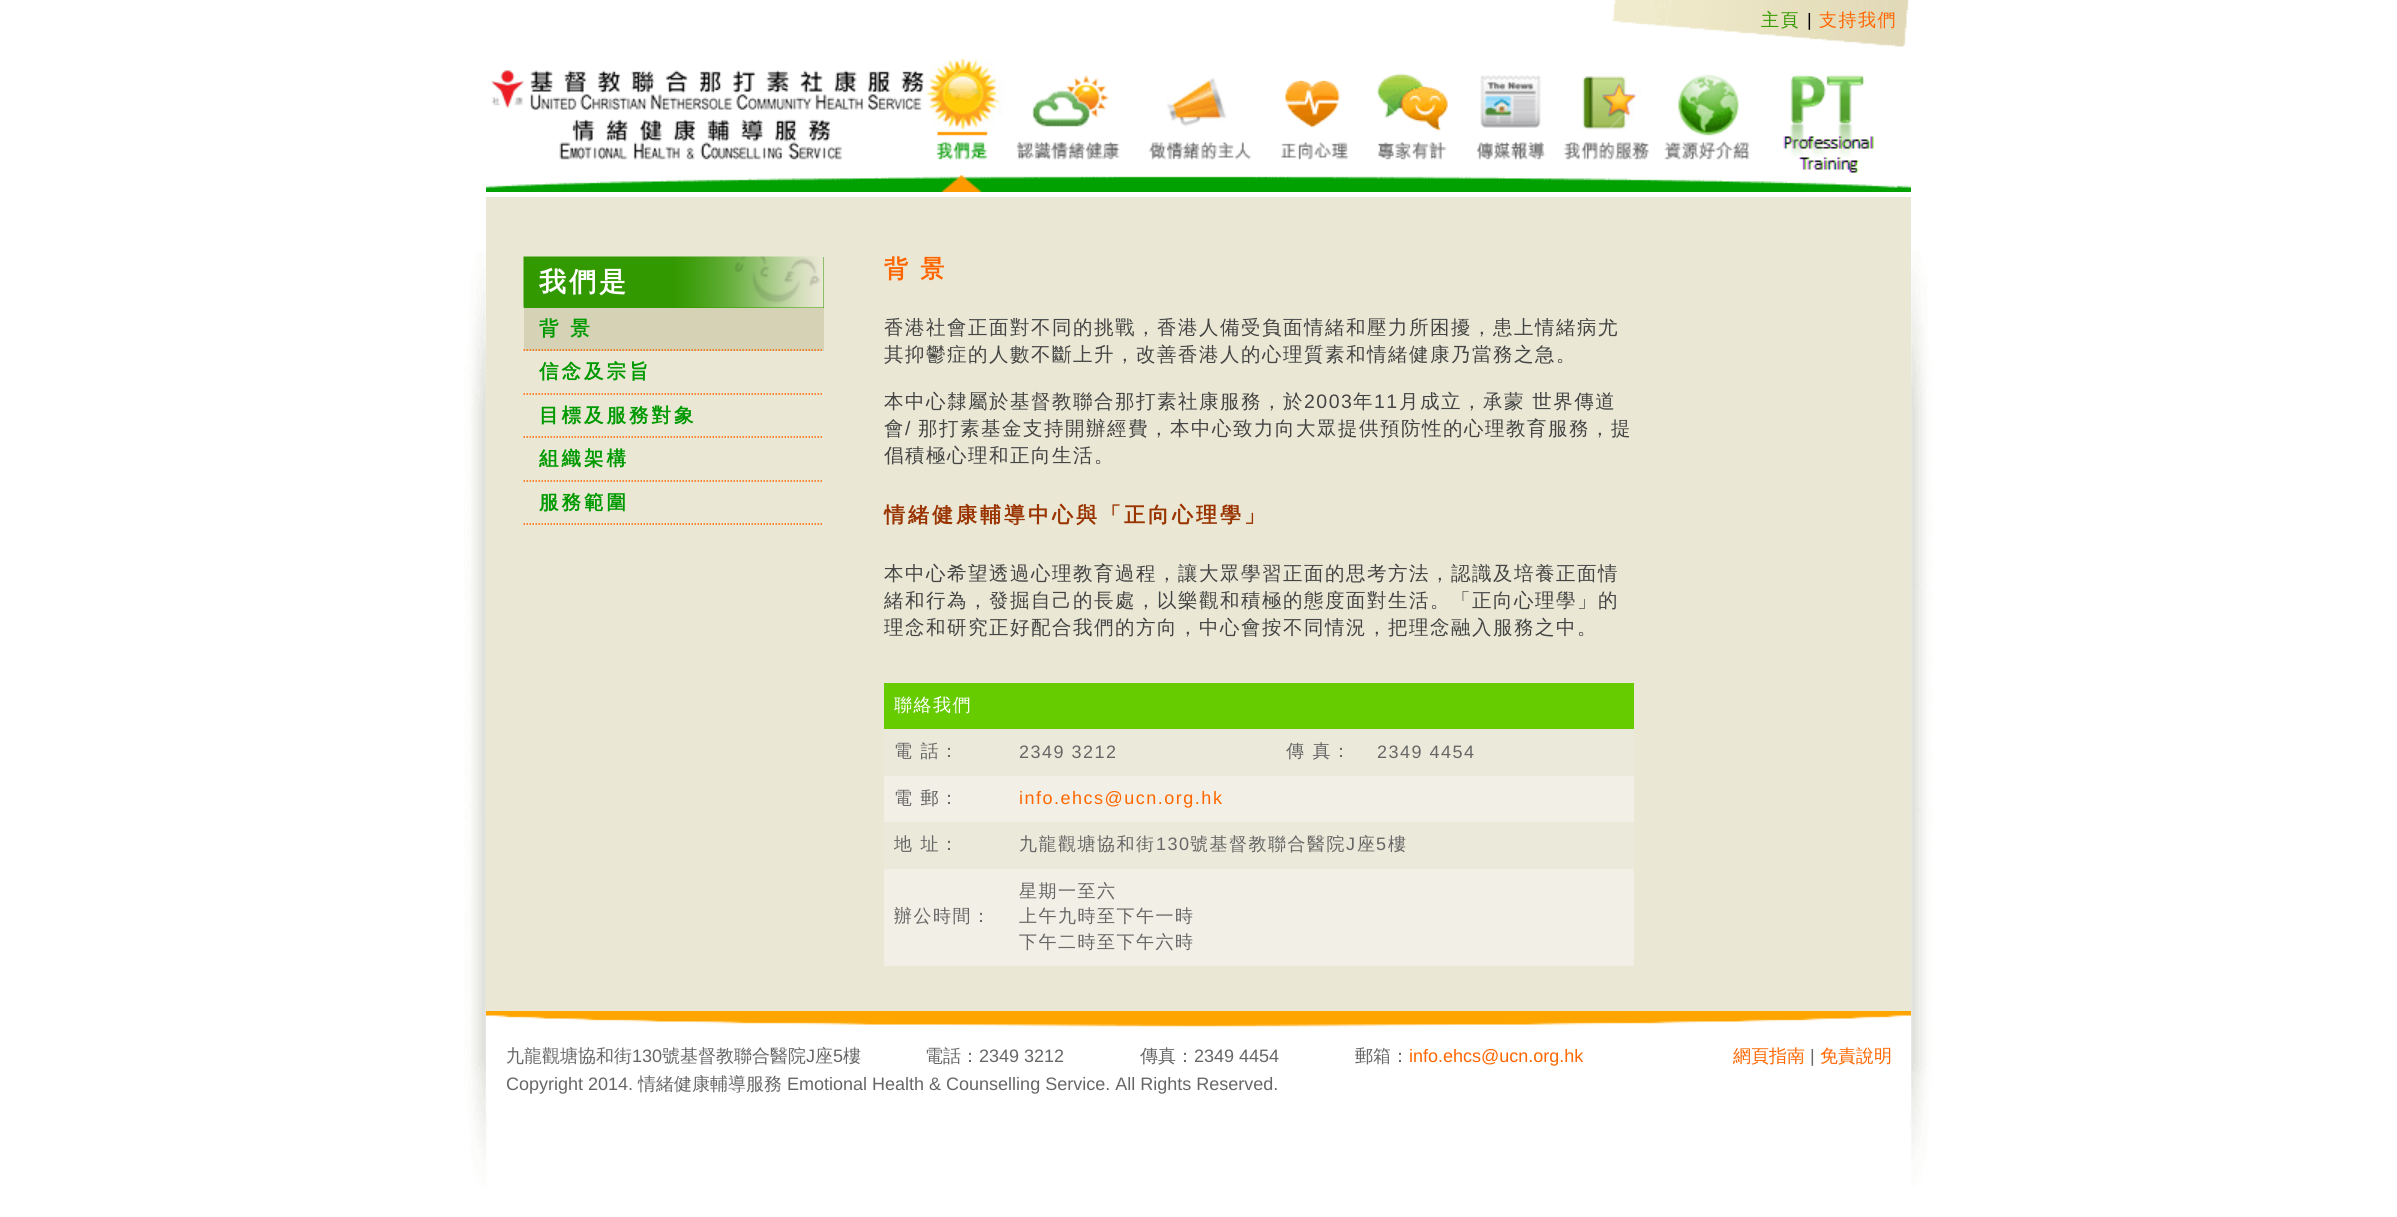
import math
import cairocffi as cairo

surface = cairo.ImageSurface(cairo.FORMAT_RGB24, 2397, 1217)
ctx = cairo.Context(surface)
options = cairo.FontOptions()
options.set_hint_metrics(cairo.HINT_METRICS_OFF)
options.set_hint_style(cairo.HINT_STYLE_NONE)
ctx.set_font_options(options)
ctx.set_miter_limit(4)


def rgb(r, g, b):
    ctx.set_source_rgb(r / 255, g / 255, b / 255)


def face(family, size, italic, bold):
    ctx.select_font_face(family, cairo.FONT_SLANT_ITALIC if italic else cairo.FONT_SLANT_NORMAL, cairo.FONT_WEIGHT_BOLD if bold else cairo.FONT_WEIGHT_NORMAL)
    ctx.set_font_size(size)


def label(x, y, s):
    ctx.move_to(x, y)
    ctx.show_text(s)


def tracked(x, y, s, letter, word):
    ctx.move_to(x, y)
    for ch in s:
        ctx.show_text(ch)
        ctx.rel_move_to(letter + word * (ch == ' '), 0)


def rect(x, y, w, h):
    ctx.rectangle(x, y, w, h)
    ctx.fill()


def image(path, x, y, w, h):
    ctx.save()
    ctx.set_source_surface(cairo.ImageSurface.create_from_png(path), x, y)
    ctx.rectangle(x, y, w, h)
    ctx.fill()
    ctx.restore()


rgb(255, 255, 255)
ctx.paint()
image('image0.png', 464, 251, 1469, 936)
image('image1.png', 1612, 0, 297, 47)
face('WenQuanYi Zen Hei Medium', 18, 0, 0)
rgb(51, 153, 0)
tracked(1761, 26, '主頁', 1.5, 0)
face('Liberation Sans', 18, 0, 0)
rgb(0, 0, 0)
tracked(1807, 26, '|', 1.5, 0)
face('WenQuanYi Zen Hei Medium', 18, 0, 0)
rgb(255, 102, 0)
tracked(1819, 26, '支持我們', 1.5, 0)
image('image2.png', 490, 70, 434, 90)
image('image3.png', 486, 177, 1425, 15)
image('image4.png', 924, 58, 72, 134)
image('image5.png', 996, 75, 138, 104)
image('image6.png', 1134, 78, 132, 101)
image('image7.png', 1266, 80, 96, 99)
image('image8.png', 1362, 73, 104, 106)
image('image9.png', 1465, 75, 95, 106)
image('image10.png', 1560, 76, 95, 106)
image('image11.png', 1654, 74, 107, 110)
image('image12.png', 1761, 75, 137, 113)
rgb(234, 232, 213)
rect(486, 197, 1425, 814)
rgb(51, 153, 0)
rect(524, 257, 300, 51)
image('image13.png', 523, 256, 301, 52)
face('WenQuanYi Zen Hei', 27, 0, 1)
rgb(255, 255, 255)
tracked(539, 291, '我們是', 3, 0)
rgb(213, 210, 181)
rect(524, 308, 300, 43)
ctx.new_path()
ctx.move_to(523.5, 350)
ctx.line_to(823.5, 350)
rgb(255, 102, 0)
ctx.set_line_width(1.5)
ctx.set_dash([1.5, 1.5])
ctx.stroke()
face('WenQuanYi Zen Hei', 19.5, 0, 1)
rgb(0, 153, 0)
tracked(539, 335, '背 景', 3, 0)
ctx.new_path()
ctx.move_to(523.5, 394)
ctx.line_to(823.5, 394)
rgb(255, 102, 0)
ctx.stroke()
rgb(0, 153, 0)
tracked(539, 378, '信念及宗旨', 3, 0)
ctx.new_path()
ctx.move_to(523.5, 437)
ctx.line_to(823.5, 437)
rgb(255, 102, 0)
ctx.stroke()
rgb(0, 153, 0)
tracked(539, 422, '目標及服務對象', 3, 0)
ctx.new_path()
ctx.move_to(523.5, 481)
ctx.line_to(823.5, 481)
rgb(255, 102, 0)
ctx.stroke()
rgb(0, 153, 0)
tracked(539, 465, '組織架構', 3, 0)
ctx.new_path()
ctx.move_to(523.5, 524)
ctx.line_to(823.5, 524)
rgb(255, 102, 0)
ctx.stroke()
rgb(0, 153, 0)
tracked(539, 509, '服務範圍', 3, 0)
face('WenQuanYi Zen Hei', 24, 0, 1)
rgb(255, 102, 0)
tracked(884, 277, '背 景', 3, -1)
face('WenQuanYi Zen Hei Medium', 19.5, 0, 0)
rgb(68, 68, 68)
tracked(884, 334, '香港社會正面對不同的挑戰，香港人備受負面情緒和壓力所困擾，患上情緒病尤', 1.5, 0)
tracked(884, 361, '其抑鬱症的人數不斷上升，改善香港人的心理質素和情緒健康乃當務之急。', 1.5, 0)
tracked(884, 408, '本中心隸屬於基督教聯合那打素社康服務，於', 1.5, 0)
face('Liberation Sans', 19.5, 0, 0)
tracked(1304, 408, '2003', 1.5, 0)
face('WenQuanYi Zen Hei Medium', 19.5, 0, 0)
tracked(1353, 408, '年', 1.5, 0)
face('Liberation Sans', 19.5, 0, 0)
tracked(1374, 408, '11', 1.5, 0)
face('WenQuanYi Zen Hei Medium', 19.5, 0, 0)
tracked(1399, 408, '月成立，承蒙 世界傳道', 1.5, 0)
tracked(884, 435, '會', 1.5, 0)
face('Liberation Sans', 19.5, 0, 0)
tracked(905, 435, '/', 1.5, 0)
face('WenQuanYi Zen Hei Medium', 19.5, 0, 0)
tracked(918, 435, '那打素基金支持開辦經費，本中心致力向大眾提供預防性的心理教育服務，提', 1.5, 0)
tracked(884, 462, '倡積極心理和正向生活。', 1.5, 0)
face('WenQuanYi Zen Hei', 21, 0, 1)
rgb(153, 51, 0)
tracked(884, 522, '情緒健康輔導中心與「正向心理學」', 3, 0)
face('WenQuanYi Zen Hei Medium', 19.5, 0, 0)
rgb(68, 68, 68)
tracked(884, 580, '本中心希望透過心理教育過程，讓大眾學習正面的思考方法，認識及培養正面情', 1.5, 0)
tracked(884, 607, '緒和行為，發掘自己的長處，以樂觀和積極的態度面對生活。「正向心理學」的', 1.5, 0)
tracked(884, 634, '理念和研究正好配合我們的方向，中心會按不同情況，把理念融入服務之中。', 1.5, 0)
rgb(102, 204, 0)
rect(884, 683, 750, 46)
face('WenQuanYi Zen Hei Medium', 18, 0, 0)
rgb(255, 255, 255)
tracked(894, 711, '聯絡我們', 1.5, 0)
rgb(235, 233, 218)
rect(884, 729, 750, 47)
rgb(102, 102, 102)
tracked(894, 757, '電 話：', 1.5, 0)
face('Liberation Sans', 18, 0, 0)
tracked(1019, 758, '2349 3212', 1.5, 0)
face('WenQuanYi Zen Hei Medium', 18, 0, 0)
tracked(1286, 757, '傳 真：', 1.5, 0)
face('Liberation Sans', 18, 0, 0)
tracked(1377, 758, '2349 4454', 1.5, 0)
rgb(242, 240, 230)
rect(884, 776, 750, 46)
face('WenQuanYi Zen Hei Medium', 18, 0, 0)
rgb(102, 102, 102)
tracked(894, 804, '電 郵：', 1.5, 0)
face('Liberation Sans', 18, 0, 0)
rgb(255, 102, 0)
tracked(1019, 804, 'info.ehcs@ucn.org.hk', 1.5, 0)
rgb(235, 233, 218)
rect(884, 822, 750, 47)
face('WenQuanYi Zen Hei Medium', 18, 0, 0)
rgb(102, 102, 102)
tracked(894, 850, '地 址：', 1.5, 0)
tracked(1019, 850, '九龍觀塘協和街', 1.5, 0)
face('Liberation Sans', 18, 0, 0)
tracked(1156, 850, '130', 1.5, 0)
face('WenQuanYi Zen Hei Medium', 18, 0, 0)
tracked(1190, 850, '號基督教聯合醫院', 1.5, 0)
face('Liberation Sans', 18, 0, 0)
tracked(1346, 850, 'J', 1.5, 0)
face('WenQuanYi Zen Hei Medium', 18, 0, 0)
tracked(1357, 850, '座', 1.5, 0)
face('Liberation Sans', 18, 0, 0)
tracked(1376, 850, '5', 1.5, 0)
face('WenQuanYi Zen Hei Medium', 18, 0, 0)
tracked(1388, 850, '樓', 1.5, 0)
rgb(242, 240, 230)
rect(884, 869, 750, 97)
rgb(102, 102, 102)
tracked(894, 922, '辦公時間：', 1.5, 0)
tracked(1019, 897, '星期一至六', 1.5, 0)
tracked(1019, 922, '上午九時至下午一時', 1.5, 0)
tracked(1019, 948, '下午二時至下午六時', 1.5, 0)
rgb(255, 255, 255)
rect(486, 1015, 1425, 101)
image('image14.png', 486, 1011, 1425, 16)
rgb(102, 102, 102)
label(506, 1062, '九龍觀塘協和街')
face('Liberation Sans', 18, 0, 0)
label(632, 1062, '130')
face('WenQuanYi Zen Hei Medium', 18, 0, 0)
label(662, 1062, '號基督教聯合醫院')
face('Liberation Sans', 18, 0, 0)
label(806, 1062, 'J')
face('WenQuanYi Zen Hei Medium', 18, 0, 0)
label(815, 1062, '座')
face('Liberation Sans', 18, 0, 0)
label(833, 1062, '5')
face('WenQuanYi Zen Hei Medium', 18, 0, 0)
label(843, 1062, '樓')
label(925, 1062, '電話：')
face('Liberation Sans', 18, 0, 0)
label(979, 1062, '2349 3212')
face('WenQuanYi Zen Hei Medium', 18, 0, 0)
label(1140, 1062, '傳真：')
face('Liberation Sans', 18, 0, 0)
label(1194, 1062, '2349 4454')
face('WenQuanYi Zen Hei Medium', 18, 0, 0)
label(1355, 1062, '郵箱：')
face('Liberation Sans', 18, 0, 0)
rgb(255, 102, 0)
label(1409, 1062, 'info.ehcs@ucn.org.hk')
face('WenQuanYi Zen Hei Medium', 18, 0, 0)
label(1733, 1062, '網頁指南')
face('Liberation Sans', 18, 0, 0)
rgb(102, 102, 102)
label(1810, 1062, '|')
face('WenQuanYi Zen Hei Medium', 18, 0, 0)
rgb(255, 102, 0)
label(1820, 1062, '免責說明')
face('Liberation Sans', 18, 0, 0)
rgb(102, 102, 102)
label(506, 1090, 'Copyright 2014.')
face('WenQuanYi Zen Hei Medium', 18, 0, 0)
label(638, 1090, '情緒健康輔導服務')
face('Liberation Sans', 18, 0, 0)
label(787, 1090, 'Emotional Health & Counselling Service. All Rights Reserved.')
surface.write_to_png('render.png')
